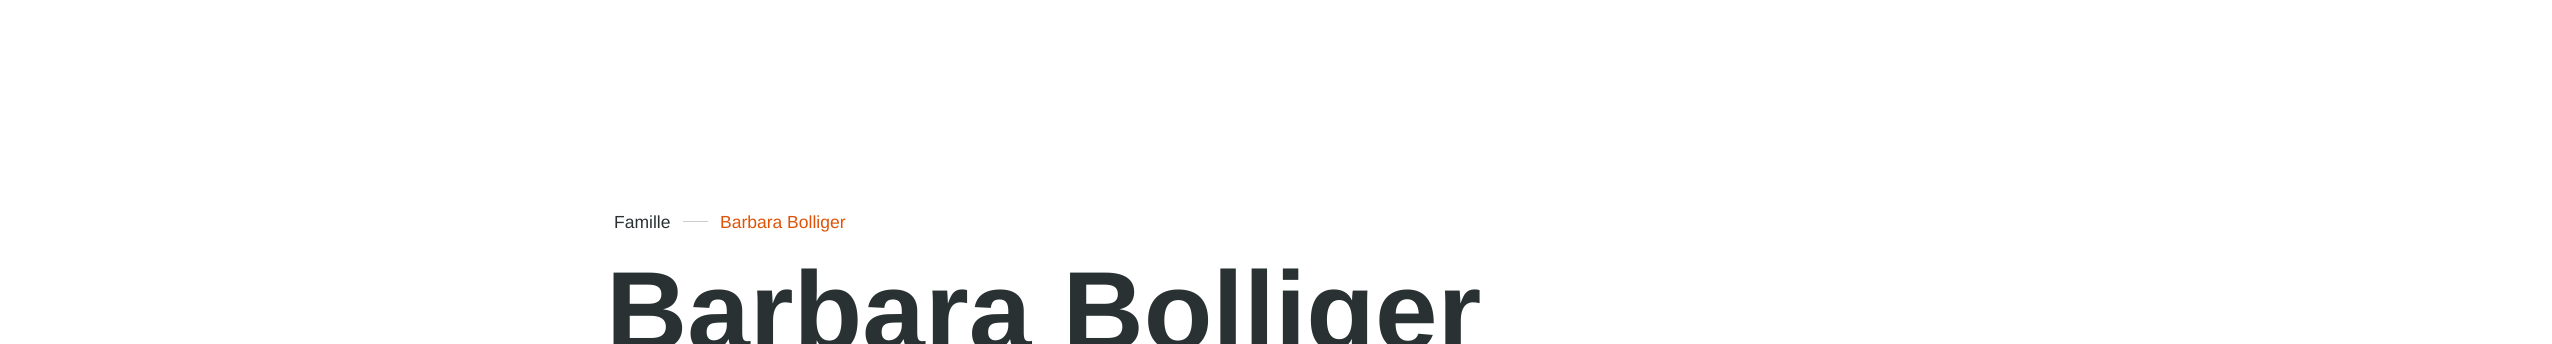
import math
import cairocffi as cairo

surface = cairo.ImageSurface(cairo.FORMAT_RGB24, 2552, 344)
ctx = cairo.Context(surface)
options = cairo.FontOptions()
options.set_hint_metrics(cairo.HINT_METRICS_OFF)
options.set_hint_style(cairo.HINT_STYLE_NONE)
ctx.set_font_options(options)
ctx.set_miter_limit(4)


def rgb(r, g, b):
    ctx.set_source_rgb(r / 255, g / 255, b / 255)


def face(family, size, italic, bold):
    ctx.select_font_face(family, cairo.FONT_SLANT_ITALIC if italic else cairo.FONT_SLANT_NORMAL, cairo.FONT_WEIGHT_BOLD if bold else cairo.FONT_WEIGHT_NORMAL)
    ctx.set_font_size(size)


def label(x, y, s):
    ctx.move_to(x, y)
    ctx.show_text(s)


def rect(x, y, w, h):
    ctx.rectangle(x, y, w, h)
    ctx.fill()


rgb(255, 255, 255)
ctx.paint()
face('Liberation Sans', 17.5, 0, 0)
rgb(41, 49, 51)
label(614, 228, 'Famille')
rgb(202, 204, 204)
rect(683, 221, 25, 1)
rgb(222, 83, 7)
label(720, 228, 'Barbara Bolliger')
face('Liberation Sans', 112.5, 0, 1)
rgb(41, 49, 51)
label(606, 350, 'Barbara Bolliger')
surface.write_to_png('render.png')
